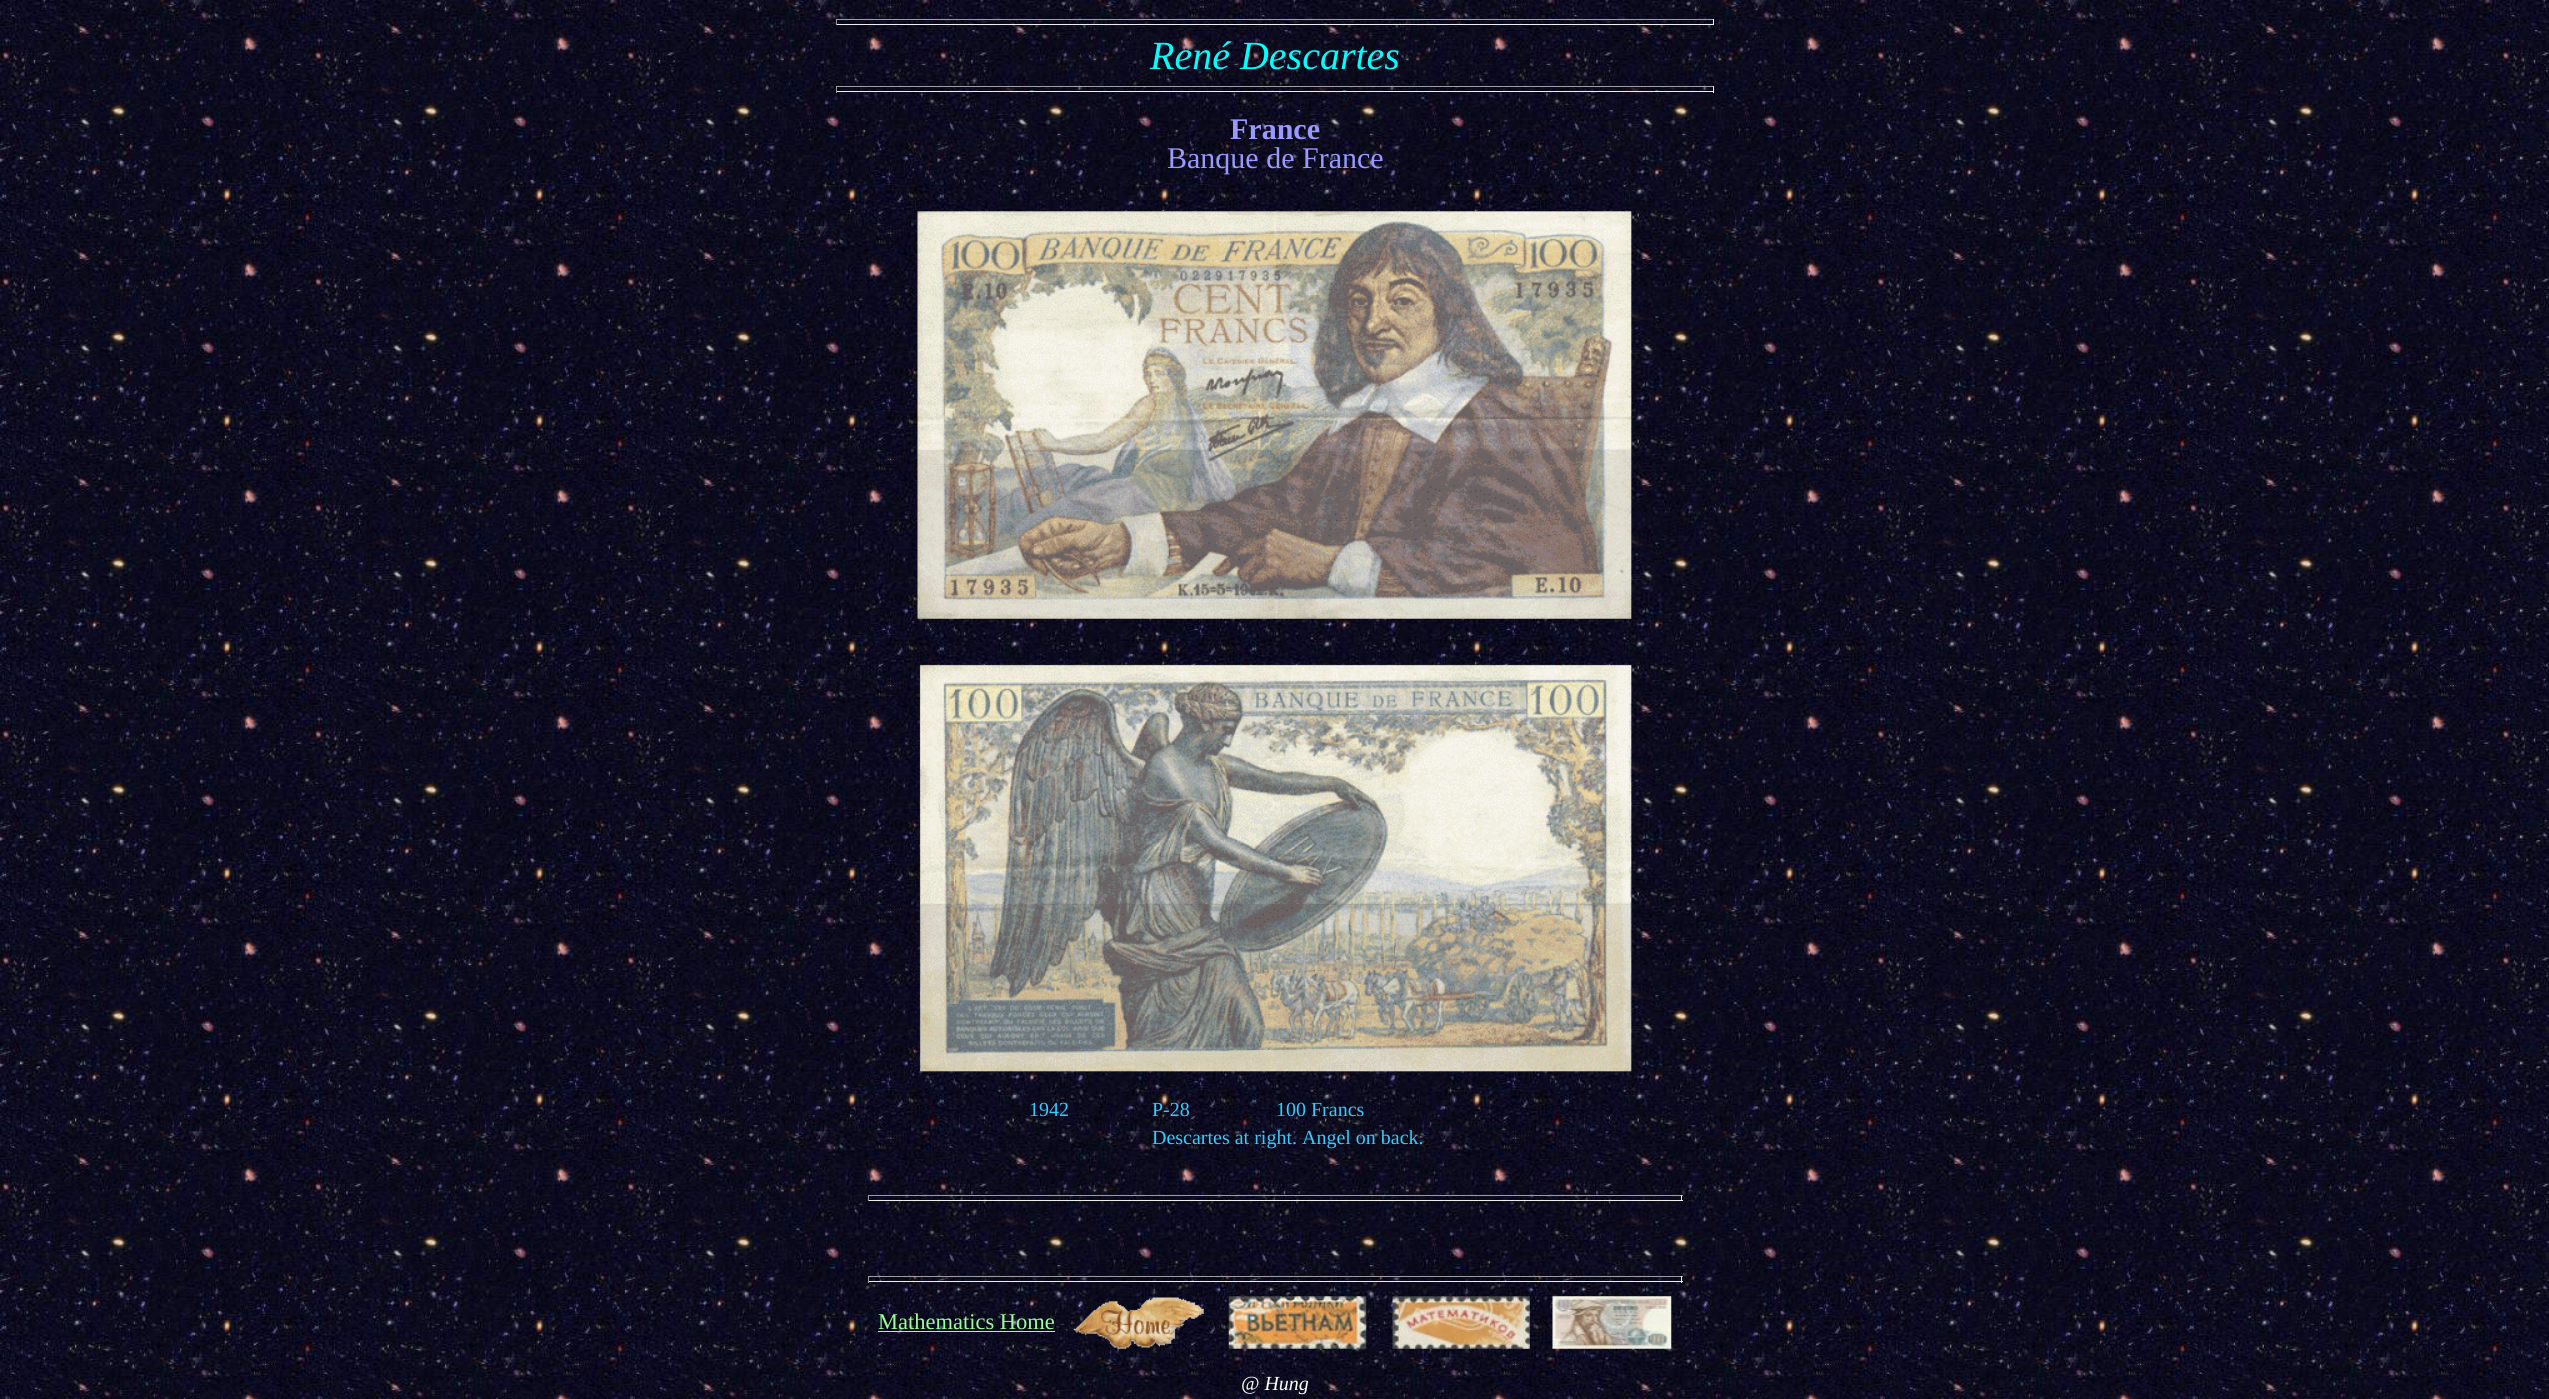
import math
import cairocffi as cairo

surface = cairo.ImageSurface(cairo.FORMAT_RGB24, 2549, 1399)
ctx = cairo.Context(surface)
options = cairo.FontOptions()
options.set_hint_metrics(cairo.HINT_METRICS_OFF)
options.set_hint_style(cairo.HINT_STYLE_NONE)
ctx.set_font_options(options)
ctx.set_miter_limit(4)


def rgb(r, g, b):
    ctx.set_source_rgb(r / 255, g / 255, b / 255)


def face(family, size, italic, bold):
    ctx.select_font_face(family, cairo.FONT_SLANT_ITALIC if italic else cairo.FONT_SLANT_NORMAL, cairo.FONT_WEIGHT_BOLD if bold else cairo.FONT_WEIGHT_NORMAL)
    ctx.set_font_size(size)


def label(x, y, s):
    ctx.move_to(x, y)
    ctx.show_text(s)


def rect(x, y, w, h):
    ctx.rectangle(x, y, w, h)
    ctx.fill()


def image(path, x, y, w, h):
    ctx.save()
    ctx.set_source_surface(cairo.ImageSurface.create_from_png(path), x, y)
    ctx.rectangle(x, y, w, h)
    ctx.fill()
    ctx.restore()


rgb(255, 255, 255)
ctx.paint()
image('image0.png', 0, 0, 2549, 1399)
rgb(159, 159, 159)
rect(836, 19, 878, 1)
rgb(238, 238, 238)
rect(1713, 19, 1, 6)
rect(836, 24, 878, 1)
rgb(159, 159, 159)
rect(836, 19, 1, 6)
face('Liberation Serif', 40, 1, 0)
rgb(0, 255, 255)
label(1150, 69, 'René Descartes')
rgb(159, 159, 159)
rect(836, 86, 878, 1)
rgb(238, 238, 238)
rect(1713, 86, 1, 7)
rect(836, 91, 878, 1)
rgb(159, 159, 159)
rect(836, 86, 1, 7)
face('Liberation Serif', 30, 0, 1)
rgb(153, 153, 255)
label(1230, 139, 'France')
face('Liberation Serif', 30, 0, 0)
label(1167, 168, 'Banque de France')
image('image1.png', 917, 211, 715, 861)
face('Liberation Serif', 20, 0, 0)
rgb(51, 204, 255)
label(1029, 1116, '1942')
label(1152, 1116, 'P-28')
label(1276, 1116, '100 Francs')
label(1152, 1144, 'Descartes at right. Angel on back.')
rgb(159, 159, 159)
rect(868, 1195, 815, 1)
rgb(238, 238, 238)
rect(1681, 1195, 1, 6)
rect(868, 1200, 815, 1)
rgb(159, 159, 159)
rect(868, 1195, 1, 6)
rect(868, 1276, 815, 1)
rgb(238, 238, 238)
rect(1681, 1276, 1, 7)
rect(868, 1281, 815, 1)
rgb(159, 159, 159)
rect(868, 1276, 1, 7)
face('Liberation Serif', 22.5, 0, 0)
rgb(153, 255, 153)
label(878, 1329, 'Mathematics Home')
rect(878, 1331, 177, 1)
image('image2.png', 1073, 1297, 131, 52)
image('image3.png', 1228, 1296, 139, 53)
image('image4.png', 1392, 1296, 138, 53)
image('image5.png', 1552, 1296, 120, 53)
face('Liberation Serif', 20, 1, 0)
rgb(255, 255, 255)
label(1241, 1390, '@ Hung')
surface.write_to_png('render.png')
